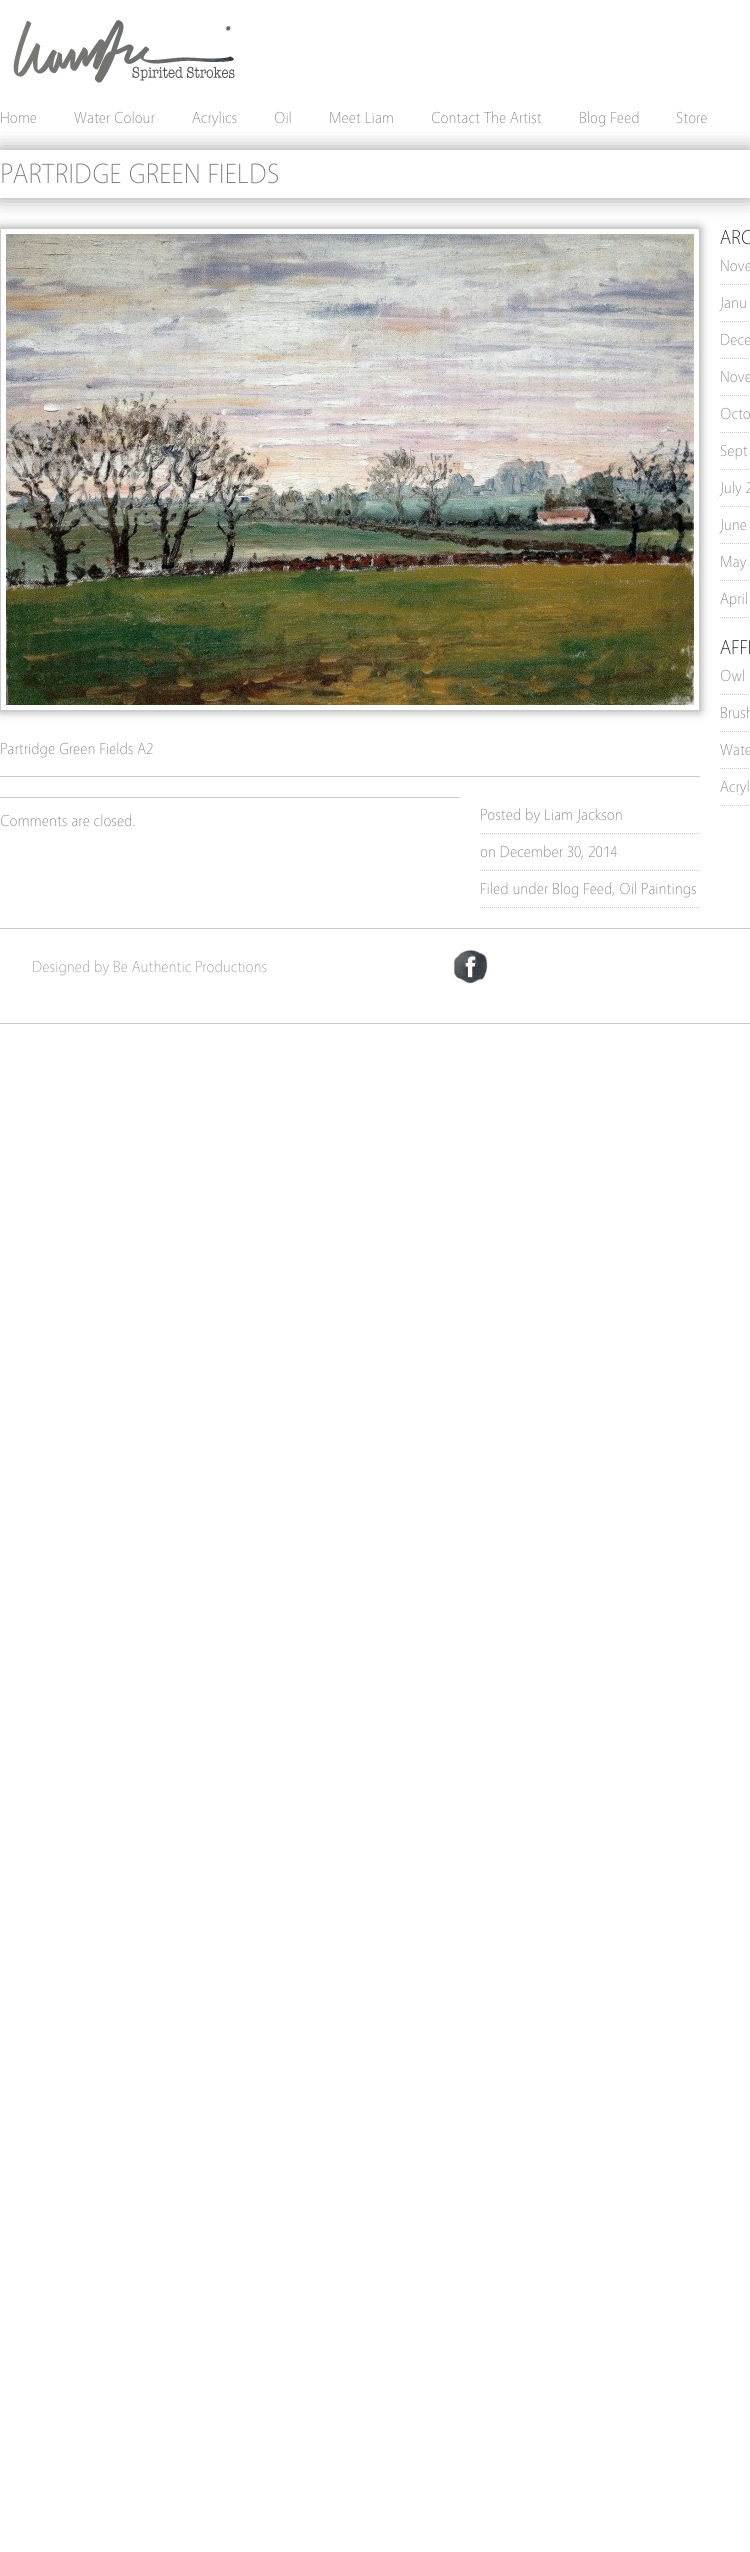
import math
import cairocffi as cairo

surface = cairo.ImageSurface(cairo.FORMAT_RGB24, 750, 2552)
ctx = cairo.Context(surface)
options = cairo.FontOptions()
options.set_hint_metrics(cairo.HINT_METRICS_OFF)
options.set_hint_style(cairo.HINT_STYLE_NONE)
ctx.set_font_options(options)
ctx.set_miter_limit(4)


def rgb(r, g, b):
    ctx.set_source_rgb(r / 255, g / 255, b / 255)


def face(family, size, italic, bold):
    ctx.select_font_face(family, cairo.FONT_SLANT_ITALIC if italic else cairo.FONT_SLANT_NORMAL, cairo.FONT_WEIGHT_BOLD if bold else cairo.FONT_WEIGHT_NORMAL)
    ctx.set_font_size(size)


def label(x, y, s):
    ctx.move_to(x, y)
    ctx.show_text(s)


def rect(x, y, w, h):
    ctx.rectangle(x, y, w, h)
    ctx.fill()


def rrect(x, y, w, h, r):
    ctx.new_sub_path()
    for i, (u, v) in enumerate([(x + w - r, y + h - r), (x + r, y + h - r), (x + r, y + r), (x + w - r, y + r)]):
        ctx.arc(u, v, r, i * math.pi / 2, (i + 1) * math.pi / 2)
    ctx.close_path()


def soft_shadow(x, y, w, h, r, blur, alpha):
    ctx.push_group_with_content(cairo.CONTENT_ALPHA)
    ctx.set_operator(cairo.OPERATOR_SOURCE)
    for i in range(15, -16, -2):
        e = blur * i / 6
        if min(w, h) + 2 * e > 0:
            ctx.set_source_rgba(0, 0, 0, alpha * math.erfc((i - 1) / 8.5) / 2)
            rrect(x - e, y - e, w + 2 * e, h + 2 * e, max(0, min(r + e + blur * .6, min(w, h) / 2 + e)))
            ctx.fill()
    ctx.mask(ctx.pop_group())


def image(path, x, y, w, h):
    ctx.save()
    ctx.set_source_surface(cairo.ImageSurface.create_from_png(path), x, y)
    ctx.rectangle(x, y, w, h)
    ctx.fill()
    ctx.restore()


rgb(255, 255, 255)
ctx.paint()
image('image0.png', 13, 20, 222, 63)
ctx.save()
ctx.set_fill_rule(cairo.FILL_RULE_EVEN_ODD)
ctx.new_path()
ctx.move_to(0, 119)
ctx.line_to(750, 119)
ctx.line_to(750, 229)
ctx.line_to(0, 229)
ctx.close_path()
ctx.move_to(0, 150)
ctx.line_to(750, 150)
ctx.line_to(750, 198)
ctx.line_to(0, 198)
ctx.close_path()
ctx.clip()
rgb(153, 153, 153)
soft_shadow(0, 150, 750, 48, 0, 10, 1)
ctx.restore()
face('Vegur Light', 16, 0, 0)
rgb(119, 119, 119)
label(0, 123, 'Home')
label(74, 123, 'Water Colour')
label(192, 123, 'Acrylics')
label(274, 123, 'Oil')
label(329, 123, 'Meet Liam')
label(431, 123, 'Contact The Artist')
label(579, 123, 'Blog Feed')
label(676, 123, 'Store')
face('Vegur Light', 28, 0, 0)
label(0, 183, 'PARTRIDGE GREEN FIELDS')
rgb(204, 204, 204)
rect(0, 928, 750, 1)
face('Vegur Light', 20, 0, 0)
rgb(0, 0, 0)
label(720, 244, 'ARC')
ctx.new_path()
ctx.move_to(720, 284.5)
ctx.line_to(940, 284.5)
ctx.move_to(720, 321.5)
ctx.line_to(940, 321.5)
rgb(204, 204, 204)
ctx.set_line_width(1)
ctx.set_dash([1, 1])
ctx.stroke()
face('Vegur Light', 16, 0, 0)
rgb(119, 119, 119)
label(720, 271, 'Nove')
label(720, 308, 'Janu')
ctx.new_path()
ctx.move_to(720, 358.5)
ctx.line_to(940, 358.5)
ctx.move_to(720, 395.5)
ctx.line_to(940, 395.5)
rgb(204, 204, 204)
ctx.stroke()
rgb(119, 119, 119)
label(720, 345, 'Dece')
label(720, 382, 'Nove')
ctx.new_path()
ctx.move_to(720, 432.5)
ctx.line_to(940, 432.5)
ctx.move_to(720, 469.5)
ctx.line_to(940, 469.5)
rgb(204, 204, 204)
ctx.stroke()
rgb(119, 119, 119)
label(720, 419, 'Octo')
label(720, 456, 'Sept')
ctx.new_path()
ctx.move_to(720, 506.5)
ctx.line_to(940, 506.5)
ctx.move_to(720, 543.5)
ctx.line_to(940, 543.5)
rgb(204, 204, 204)
ctx.stroke()
rgb(119, 119, 119)
label(720, 493, 'July 2')
label(720, 530, 'June')
ctx.new_path()
ctx.move_to(720, 580.5)
ctx.line_to(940, 580.5)
ctx.move_to(720, 617.5)
ctx.line_to(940, 617.5)
rgb(204, 204, 204)
ctx.stroke()
rgb(119, 119, 119)
label(720, 567, 'May')
label(720, 604, 'April')
face('Vegur Light', 20, 0, 0)
rgb(0, 0, 0)
label(720, 654, 'AFFI')
ctx.new_path()
ctx.move_to(720, 694.5)
ctx.line_to(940, 694.5)
ctx.move_to(720, 731.5)
ctx.line_to(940, 731.5)
rgb(204, 204, 204)
ctx.stroke()
face('Vegur Light', 16, 0, 0)
rgb(119, 119, 119)
label(720, 681, 'Owl')
label(720, 718, 'Brush')
ctx.new_path()
ctx.move_to(720, 768.5)
ctx.line_to(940, 768.5)
ctx.move_to(720, 805.5)
ctx.line_to(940, 805.5)
rgb(204, 204, 204)
ctx.stroke()
rgb(119, 119, 119)
label(720, 755, 'Wate')
label(720, 792, 'Acryl')
rgb(204, 204, 204)
rect(0, 776, 700, 1)
ctx.save()
ctx.set_fill_rule(cairo.FILL_RULE_EVEN_ODD)
ctx.new_path()
ctx.move_to(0, 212)
ctx.line_to(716, 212)
ctx.line_to(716, 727)
ctx.line_to(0, 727)
ctx.close_path()
ctx.move_to(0, 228)
ctx.line_to(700, 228)
ctx.line_to(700, 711)
ctx.line_to(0, 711)
ctx.close_path()
ctx.clip()
rgb(153, 153, 153)
soft_shadow(0, 228, 700, 483, 0, 5, 1)
ctx.restore()
ctx.rectangle(0.5, 228.5, 699, 482)
ctx.set_dash([])
ctx.stroke()
image('image1.png', 6, 234, 688, 471)
rgb(119, 119, 119)
label(0, 754, 'Partridge Green Fields A2')
rgb(204, 204, 204)
rect(0, 797, 460, 1)
rgb(119, 119, 119)
label(0, 826, 'Comments are closed.')
ctx.new_path()
ctx.move_to(480, 833.5)
ctx.line_to(700, 833.5)
rgb(204, 204, 204)
ctx.set_dash([1, 1])
ctx.stroke()
rgb(119, 119, 119)
label(480, 820, 'Posted by Liam Jackson')
ctx.new_path()
ctx.move_to(480, 870.5)
ctx.line_to(700, 870.5)
rgb(204, 204, 204)
ctx.stroke()
rgb(119, 119, 119)
label(480, 857, 'on December 30, 2014')
ctx.new_path()
ctx.move_to(480, 907.5)
ctx.line_to(700, 907.5)
rgb(204, 204, 204)
ctx.stroke()
rgb(119, 119, 119)
label(480, 894, 'Filed under Blog Feed, Oil Paintings')
rgb(204, 204, 204)
rect(0, 1023, 750, 1)
rgb(143, 143, 143)
label(32, 972, 'Designed by Be Authentic Productions')
image('image2.png', 453, 949, 35, 35)
surface.write_to_png('render.png')
